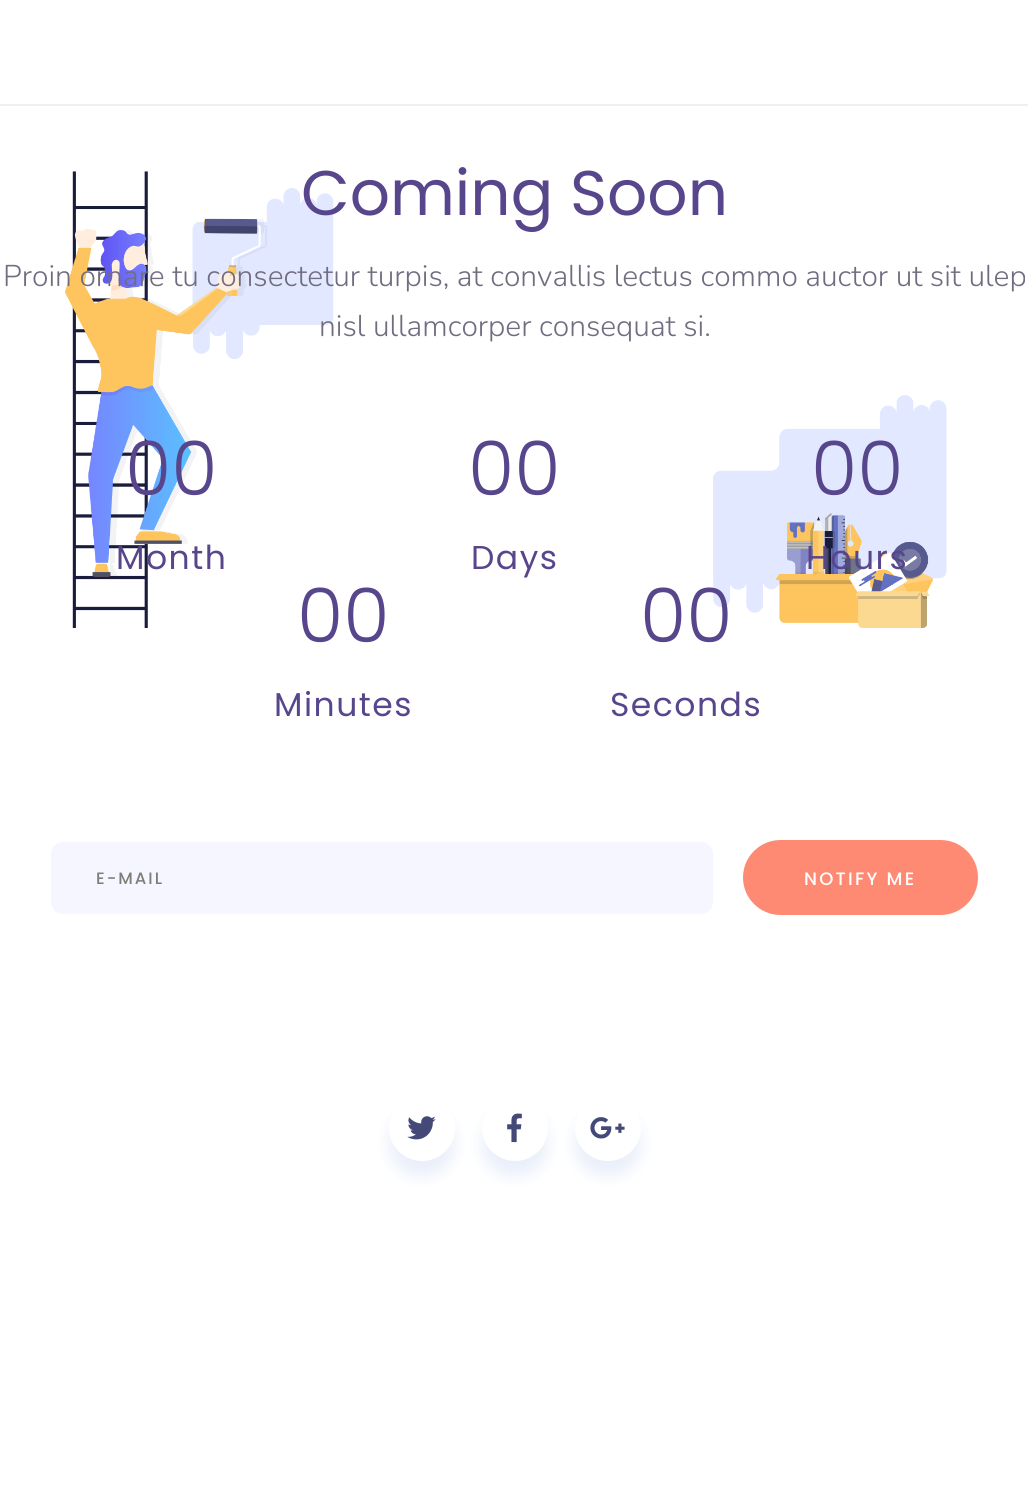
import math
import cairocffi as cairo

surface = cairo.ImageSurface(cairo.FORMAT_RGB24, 1028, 1493)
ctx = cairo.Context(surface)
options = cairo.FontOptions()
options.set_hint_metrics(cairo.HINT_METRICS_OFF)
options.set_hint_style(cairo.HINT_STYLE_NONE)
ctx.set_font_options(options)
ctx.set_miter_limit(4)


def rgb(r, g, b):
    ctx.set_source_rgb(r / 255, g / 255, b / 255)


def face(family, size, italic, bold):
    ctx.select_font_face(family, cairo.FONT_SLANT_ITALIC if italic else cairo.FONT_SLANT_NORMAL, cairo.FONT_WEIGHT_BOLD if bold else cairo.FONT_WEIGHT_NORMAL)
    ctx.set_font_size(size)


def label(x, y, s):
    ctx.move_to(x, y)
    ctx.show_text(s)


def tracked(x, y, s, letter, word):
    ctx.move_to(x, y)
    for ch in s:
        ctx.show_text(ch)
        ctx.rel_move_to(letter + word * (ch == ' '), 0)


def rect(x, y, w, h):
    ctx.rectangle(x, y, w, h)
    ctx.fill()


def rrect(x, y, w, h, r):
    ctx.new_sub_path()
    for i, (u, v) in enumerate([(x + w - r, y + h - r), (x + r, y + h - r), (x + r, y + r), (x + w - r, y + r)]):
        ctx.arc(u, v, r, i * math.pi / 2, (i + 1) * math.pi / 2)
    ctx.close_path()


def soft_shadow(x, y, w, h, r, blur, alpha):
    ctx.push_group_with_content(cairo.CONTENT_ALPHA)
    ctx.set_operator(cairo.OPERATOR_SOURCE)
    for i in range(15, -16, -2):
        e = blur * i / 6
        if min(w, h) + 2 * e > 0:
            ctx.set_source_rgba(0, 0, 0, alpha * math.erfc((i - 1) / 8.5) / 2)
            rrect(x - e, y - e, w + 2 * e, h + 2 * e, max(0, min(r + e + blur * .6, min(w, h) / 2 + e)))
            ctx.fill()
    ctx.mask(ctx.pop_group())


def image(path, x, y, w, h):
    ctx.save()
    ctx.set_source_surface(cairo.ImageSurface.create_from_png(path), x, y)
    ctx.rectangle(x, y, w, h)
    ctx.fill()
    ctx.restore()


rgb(255, 255, 255)
ctx.paint()
rgb(237, 239, 242)
rect(0, 104, 1028, 2)
image('image0.png', 65, 171, 882, 457)
face('Poppins', 63, 0, 0)
rgb(88, 70, 140)
label(301, 215, 'Coming Soon')
face('Nunito Light', 30, 0, 0)
rgb(113, 108, 128)
label(3, 286, 'Proin ornare tu consectetur turpis, at convallis lectus commo auctor ut sit ulep')
label(319, 336, 'nisl ullamcorper consequat si.')
face('Poppins Light', 75, 0, 0)
rgb(88, 70, 140)
label(125, 495, '00')
face('Poppins', 33, 0, 0)
tracked(116, 569, 'Month', 1.5, 0)
face('Poppins Light', 75, 0, 0)
label(468, 495, '00')
face('Poppins', 33, 0, 0)
tracked(471, 569, 'Days', 1.5, 0)
face('Poppins Light', 75, 0, 0)
label(811, 495, '00')
face('Poppins', 33, 0, 0)
tracked(806, 569, 'Hours', 1.5, 0)
face('Poppins Light', 75, 0, 0)
label(297, 642, '00')
face('Poppins', 33, 0, 0)
tracked(274, 716, 'Minutes', 1.5, 0)
face('Poppins Light', 75, 0, 0)
label(640, 642, '00')
face('Poppins', 33, 0, 0)
tracked(610, 716, 'Seconds', 1.5, 0)
rgb(245, 246, 255)
rrect(51, 842, 662, 72, 12)
ctx.fill()
face('Poppins Medium', 16.5, 0, 0)
rgb(128, 125, 120)
tracked(96, 884, 'E-MAIL', 2, 0)
rgb(255, 138, 115)
rrect(743, 840, 235, 75, 37.5)
ctx.fill()
face('Poppins Medium', 18, 0, 0)
rgb(255, 255, 255)
tracked(804, 885, 'NOTIFY ME', 2.25, 0)
rgb(111, 145, 218)
soft_shadow(389, 1110, 66, 66, 33, 7.5, 0.15)
rgb(255, 255, 255)
ctx.arc(422, 1128, 33, 0, 2 * math.pi)
ctx.fill()
image('image1.png', 407, 1116, 29, 24)
rgb(111, 145, 218)
soft_shadow(482, 1110, 66, 66, 33, 7.5, 0.15)
rgb(255, 255, 255)
ctx.arc(515, 1128, 33, 0, 2 * math.pi)
ctx.fill()
image('image2.png', 507, 1113, 15, 30)
rgb(111, 145, 218)
soft_shadow(575, 1110, 66, 66, 33, 7.5, 0.15)
rgb(255, 255, 255)
ctx.arc(608, 1128, 33, 0, 2 * math.pi)
ctx.fill()
image('image3.png', 590, 1117, 35, 22)
surface.write_to_png('render.png')
